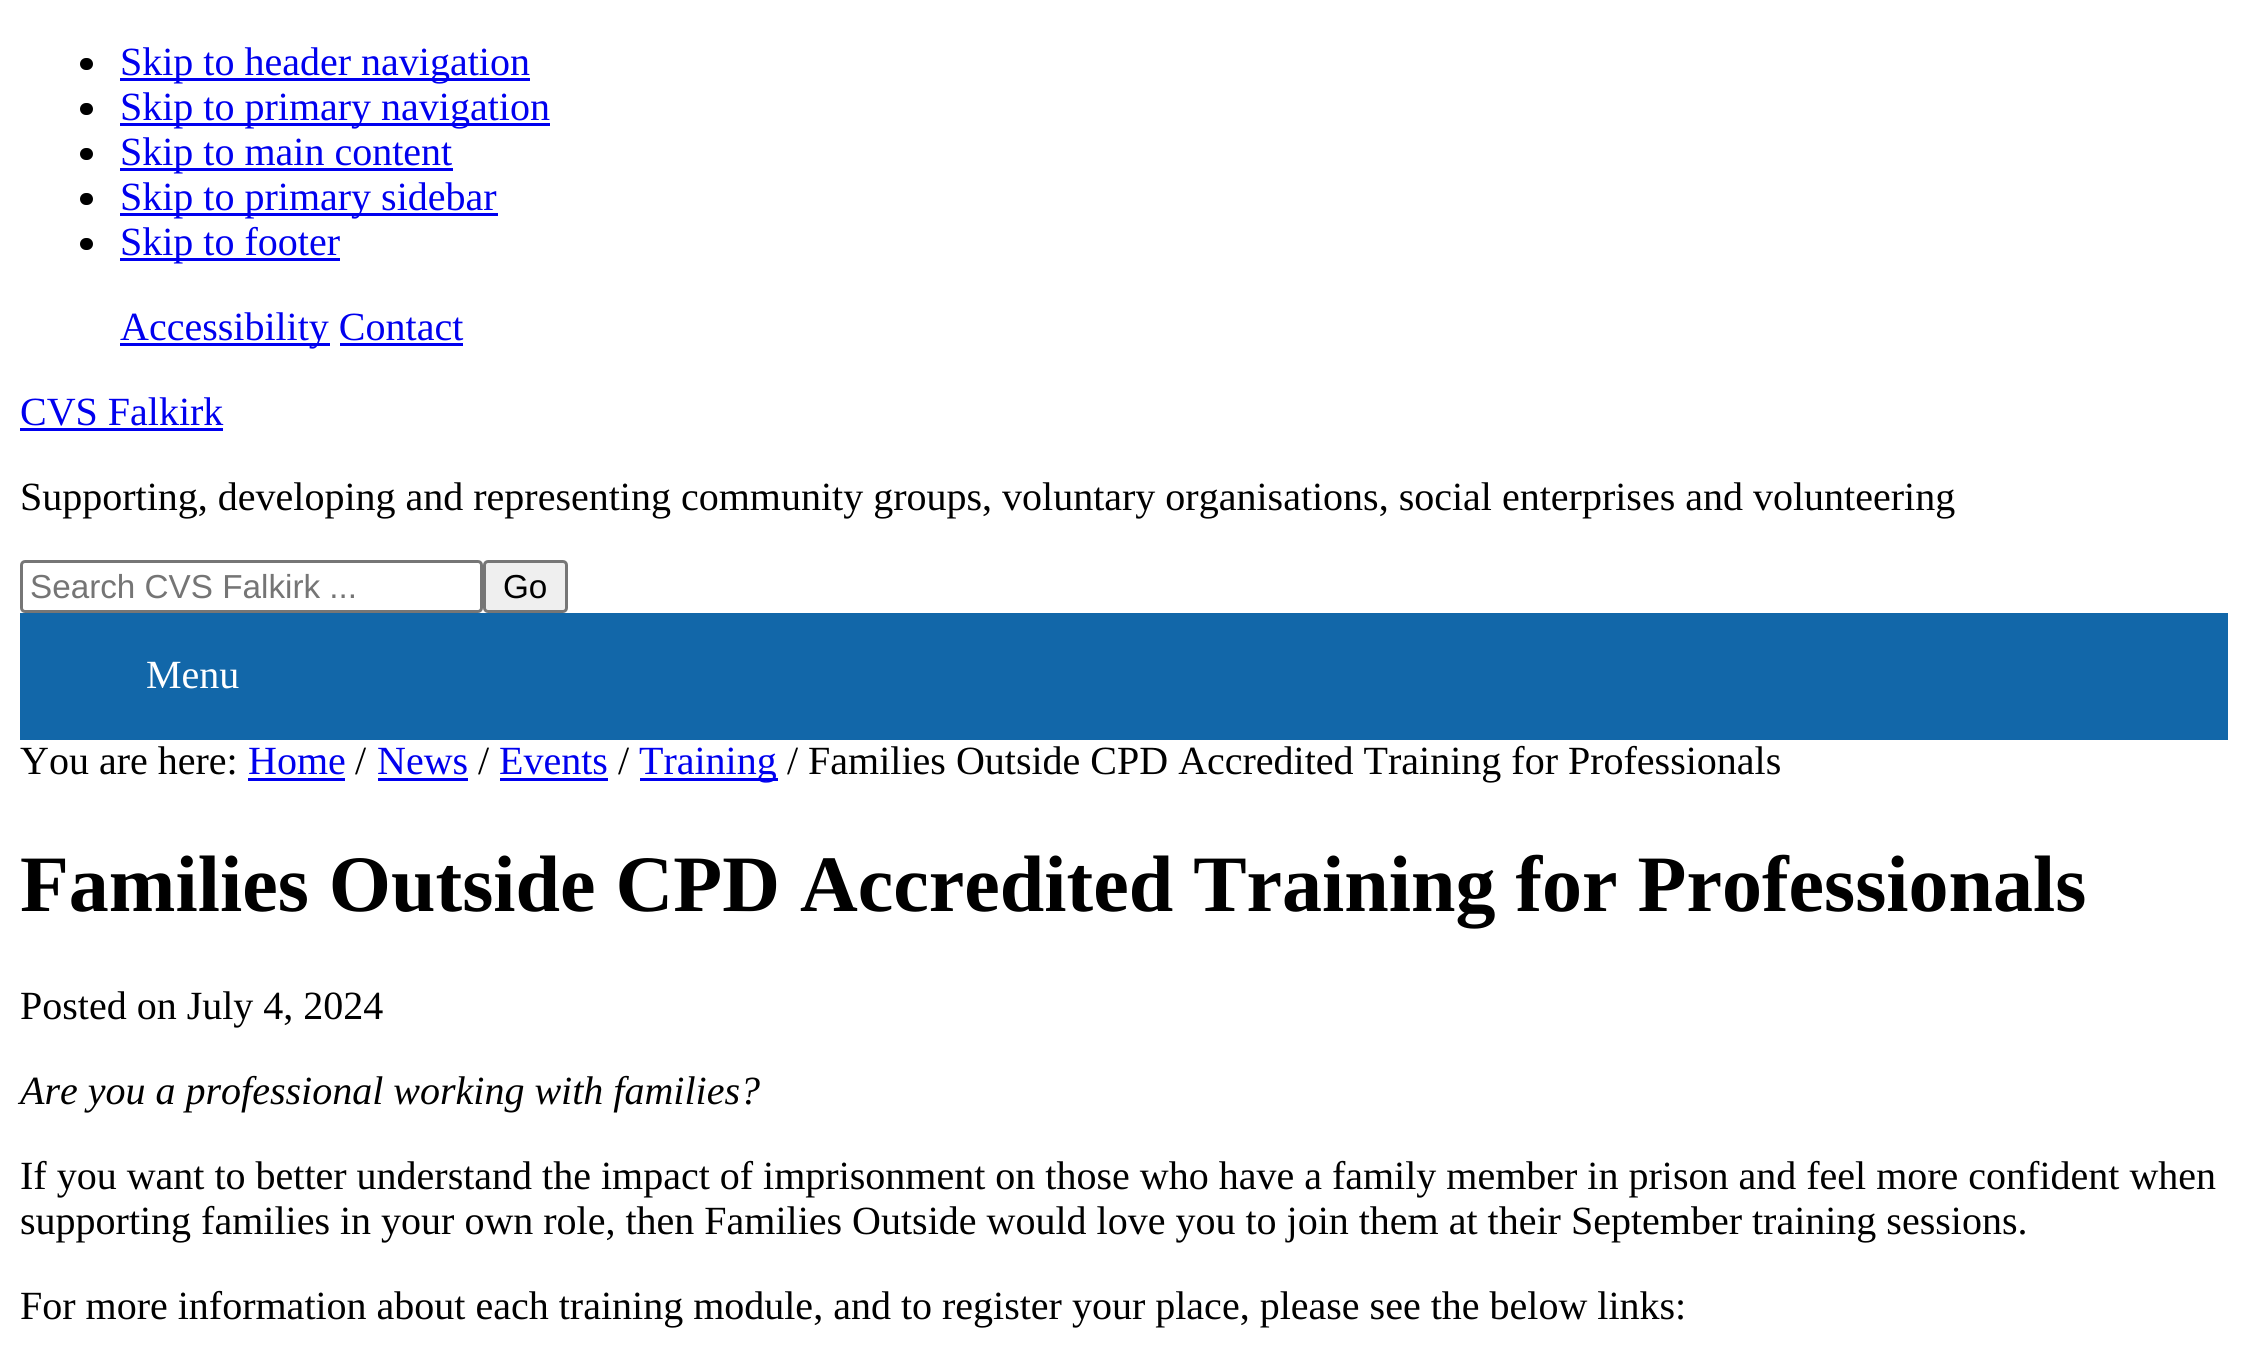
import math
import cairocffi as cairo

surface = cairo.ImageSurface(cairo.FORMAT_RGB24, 2246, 1370)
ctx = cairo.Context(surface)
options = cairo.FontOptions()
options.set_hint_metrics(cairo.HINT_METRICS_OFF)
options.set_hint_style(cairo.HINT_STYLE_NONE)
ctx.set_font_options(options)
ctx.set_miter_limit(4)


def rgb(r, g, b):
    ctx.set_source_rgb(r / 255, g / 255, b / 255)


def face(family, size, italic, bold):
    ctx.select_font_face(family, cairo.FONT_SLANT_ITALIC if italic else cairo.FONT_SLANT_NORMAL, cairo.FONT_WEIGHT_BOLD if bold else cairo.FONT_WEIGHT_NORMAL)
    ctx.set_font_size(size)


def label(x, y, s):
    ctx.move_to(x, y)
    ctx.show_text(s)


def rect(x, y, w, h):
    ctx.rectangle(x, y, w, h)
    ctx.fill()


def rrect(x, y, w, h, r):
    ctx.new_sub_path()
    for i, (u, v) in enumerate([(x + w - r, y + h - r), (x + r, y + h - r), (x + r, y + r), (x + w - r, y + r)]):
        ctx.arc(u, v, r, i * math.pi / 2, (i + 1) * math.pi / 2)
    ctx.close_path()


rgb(255, 255, 255)
ctx.paint()
rgb(0, 0, 0)
rrect(80, 58, 13, 12, 6)
ctx.fill()
rgb(0, 0, 238)
rect(120, 78, 410, 3)
face('Liberation Serif', 40, 0, 0)
label(120, 75, 'Skip to header navigation')
rgb(0, 0, 0)
rrect(80, 103, 13, 12, 6)
ctx.fill()
rgb(0, 0, 238)
rect(120, 123, 430, 3)
label(120, 120, 'Skip to primary navigation')
rgb(0, 0, 0)
rrect(80, 148, 13, 12, 6)
ctx.fill()
rgb(0, 0, 238)
rect(120, 168, 333, 3)
label(120, 165, 'Skip to main content')
rgb(0, 0, 0)
rrect(80, 193, 13, 12, 6)
ctx.fill()
rgb(0, 0, 238)
rect(120, 213, 378, 3)
label(120, 210, 'Skip to primary sidebar')
rgb(0, 0, 0)
rrect(80, 238, 13, 12, 6)
ctx.fill()
rgb(0, 0, 238)
rect(120, 258, 220, 3)
label(120, 255, 'Skip to footer')
rect(120, 343, 210, 3)
label(120, 340, 'Accessibility Contact')
rect(340, 343, 123, 3)
label(20, 425, 'CVS Falkirk')
rect(20, 428, 203, 3)
rgb(0, 0, 0)
label(20, 510, 'Supporting, developing and representing community groups, voluntary organisations, social enterprises and volunteering')
rrect(21.5, 561.5, 460, 50, 3.5)
rgb(118, 118, 118)
ctx.set_line_width(3)
ctx.stroke()
face('Liberation Sans', 33.25, 0, 0)
rgb(117, 117, 117)
label(30, 598, 'Search CVS Falkirk ...')
rgb(239, 239, 239)
rrect(484.5, 561.5, 82, 50, 3.5)
ctx.fill_preserve()
rgb(118, 118, 118)
ctx.stroke()
rgb(0, 0, 0)
label(503, 598, 'Go')
rgb(18, 103, 169)
rect(20, 613, 2208, 127)
face('Liberation Serif', 40, 0, 0)
rgb(255, 255, 255)
label(146, 688, 'Menu')
rgb(0, 0, 0)
label(20, 774, 'You are here:')
rgb(0, 0, 238)
label(248, 774, 'Home')
rect(248, 778, 97, 3)
rgb(0, 0, 0)
label(355, 774, '/')
rgb(0, 0, 238)
label(377, 774, 'News')
rect(378, 778, 90, 3)
rgb(0, 0, 0)
label(478, 774, '/')
rgb(0, 0, 238)
label(499, 774, 'Events')
rect(500, 778, 108, 3)
rgb(0, 0, 0)
label(618, 774, '/')
rgb(0, 0, 238)
rect(640, 778, 138, 3)
label(639, 774, 'Training')
rgb(0, 0, 0)
label(787, 774, '/ Families Outside CPD Accredited Training for Professionals')
face('Liberation Serif', 80, 0, 1)
label(20, 911, 'Families Outside CPD Accredited Training for Professionals')
face('Liberation Serif', 40, 0, 0)
label(20, 1019, 'Posted on July 4, 2024')
face('Liberation Serif', 40, 1, 0)
label(20, 1104, 'Are you a professional working with families?')
face('Liberation Serif', 40, 0, 0)
label(20, 1189, 'If you want to better understand the impact of imprisonment on those who have a family member in prison and feel more confident when')
label(20, 1234, 'supporting families in your own role, then Families Outside would love you to join them at their September training sessions.')
label(20, 1319, 'For more information about each training module, and to register your place, please see the below links:')
surface.write_to_png('render.png')
